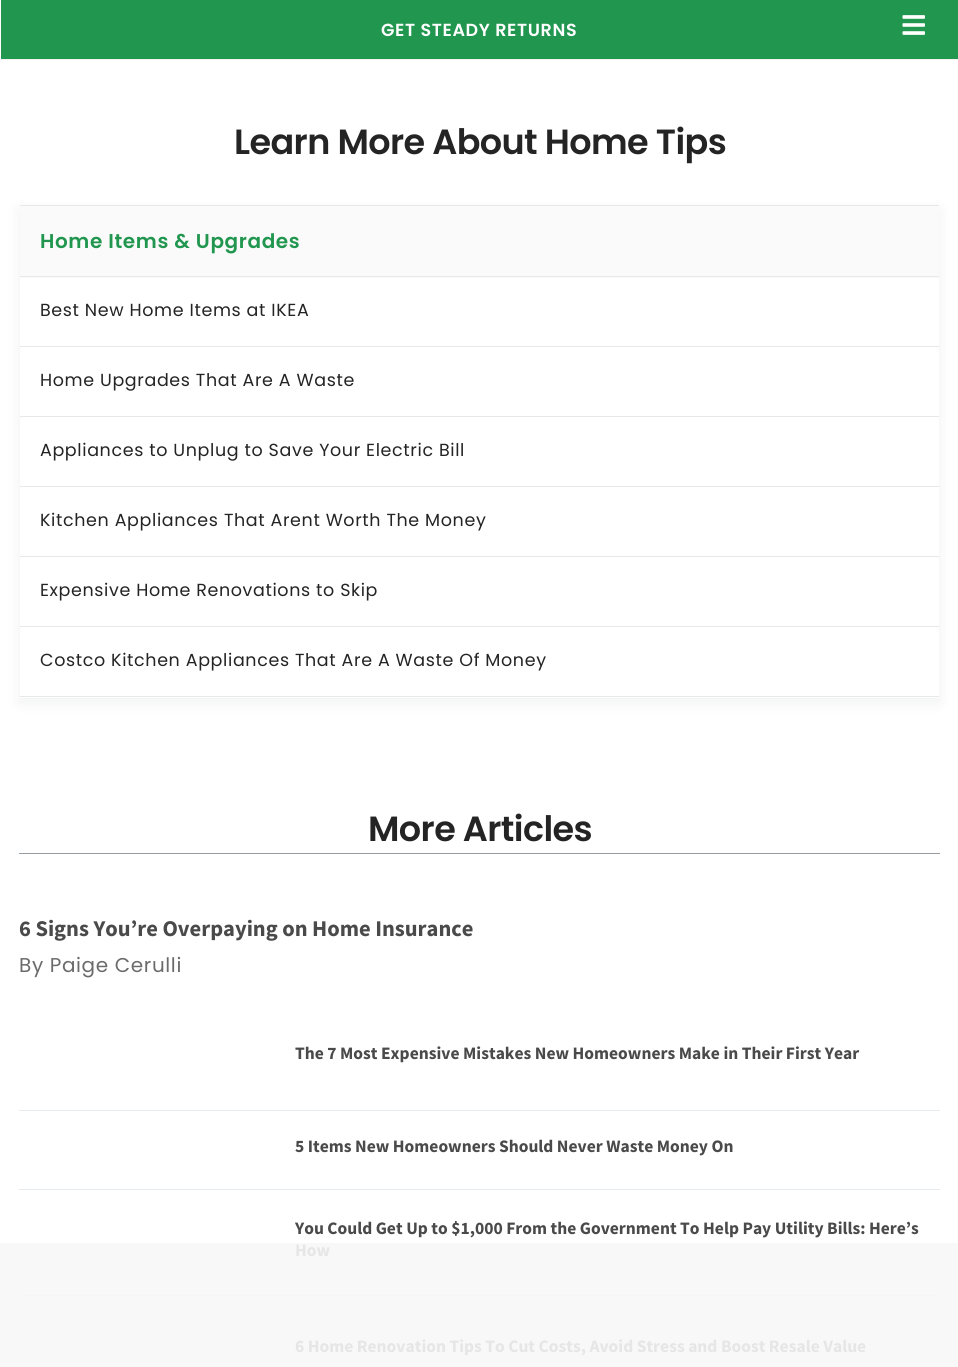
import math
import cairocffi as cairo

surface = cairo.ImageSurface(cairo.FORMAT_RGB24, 958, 1367)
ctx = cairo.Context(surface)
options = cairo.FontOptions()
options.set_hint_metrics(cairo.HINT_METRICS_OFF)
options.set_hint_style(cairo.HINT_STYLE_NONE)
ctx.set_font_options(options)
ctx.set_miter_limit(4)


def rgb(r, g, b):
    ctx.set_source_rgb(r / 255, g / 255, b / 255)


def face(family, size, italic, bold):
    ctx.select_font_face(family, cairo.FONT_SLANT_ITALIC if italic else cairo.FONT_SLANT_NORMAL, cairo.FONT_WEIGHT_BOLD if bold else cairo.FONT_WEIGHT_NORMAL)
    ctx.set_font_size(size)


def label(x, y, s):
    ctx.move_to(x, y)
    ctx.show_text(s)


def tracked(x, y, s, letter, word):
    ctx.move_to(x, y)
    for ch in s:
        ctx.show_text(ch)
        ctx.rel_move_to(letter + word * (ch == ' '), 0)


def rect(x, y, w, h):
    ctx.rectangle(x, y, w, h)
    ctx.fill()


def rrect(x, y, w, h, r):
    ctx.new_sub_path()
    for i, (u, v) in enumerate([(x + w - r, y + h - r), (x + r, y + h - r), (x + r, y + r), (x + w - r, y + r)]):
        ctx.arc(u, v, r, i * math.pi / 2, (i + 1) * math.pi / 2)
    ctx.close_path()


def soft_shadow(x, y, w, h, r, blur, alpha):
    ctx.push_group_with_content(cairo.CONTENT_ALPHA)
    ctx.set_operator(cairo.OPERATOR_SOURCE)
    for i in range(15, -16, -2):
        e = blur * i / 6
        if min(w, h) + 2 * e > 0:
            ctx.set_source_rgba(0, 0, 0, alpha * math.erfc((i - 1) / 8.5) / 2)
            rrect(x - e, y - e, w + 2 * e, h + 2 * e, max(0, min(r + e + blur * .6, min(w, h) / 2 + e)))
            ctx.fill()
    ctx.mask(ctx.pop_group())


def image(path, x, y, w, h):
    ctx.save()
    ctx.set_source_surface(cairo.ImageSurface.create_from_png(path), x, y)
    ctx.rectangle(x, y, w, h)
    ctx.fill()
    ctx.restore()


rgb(255, 255, 255)
ctx.paint()
rgb(248, 248, 248)
rect(0, 1243, 958, 124)
rgb(242, 242, 242)
rect(0, 59, 958, 1)
rgb(32, 150, 79)
rect(1, 0, 957, 59)
face('Poppins SemiBold', 17.5, 0, 0)
rgb(255, 255, 255)
tracked(381, 36, 'GET STEADY RETURNS', 0.62, 0)
image('image0.png', 902, 15, 23, 20)
face('Poppins SemiBold', 35, 0, 0)
rgb(36, 36, 36)
tracked(234, 154, 'Learn More About Home Tips', -0.6, 0)
ctx.save()
ctx.set_fill_rule(cairo.FILL_RULE_EVEN_ODD)
ctx.new_path()
ctx.move_to(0, 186)
ctx.line_to(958, 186)
ctx.line_to(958, 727)
ctx.line_to(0, 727)
ctx.close_path()
ctx.move_to(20, 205)
ctx.line_to(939, 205)
ctx.line_to(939, 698)
ctx.line_to(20, 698)
ctx.close_path()
ctx.clip()
rgb(66, 76, 95)
soft_shadow(20, 210, 919, 493, 0, 7.5, 0.08)
ctx.restore()
rgb(232, 232, 232)
rect(20, 205, 919, 1)
rgb(250, 250, 250)
rect(20, 206, 919, 72)
rgb(232, 232, 232)
rect(20, 276, 919, 1)
face('Poppins SemiBold', 20, 0, 0)
rgb(32, 150, 79)
tracked(40, 248, 'Home Items & Upgrades', 0.62, 0)
rgb(232, 232, 232)
rect(20, 346, 919, 1)
face('Poppins', 17.5, 0, 0)
rgb(36, 36, 36)
tracked(40, 316, 'Best New Home Items at IKEA', 0.62, 0)
rgb(232, 232, 232)
rect(20, 416, 919, 1)
rgb(36, 36, 36)
tracked(40, 386, 'Home Upgrades That Are A Waste', 0.62, 0)
rgb(232, 232, 232)
rect(20, 486, 919, 1)
rgb(36, 36, 36)
tracked(40, 456, 'Appliances to Unplug to Save Your Electric Bill', 0.62, 0)
rgb(232, 232, 232)
rect(20, 556, 919, 1)
rgb(36, 36, 36)
tracked(40, 526, 'Kitchen Appliances That Arent Worth The Money', 0.62, 0)
rgb(232, 232, 232)
rect(20, 626, 919, 1)
rgb(36, 36, 36)
tracked(40, 596, 'Expensive Home Renovations to Skip', 0.62, 0)
rgb(232, 232, 232)
rect(20, 696, 919, 1)
rgb(36, 36, 36)
tracked(40, 666, 'Costco Kitchen Appliances That Are A Waste Of Money', 0.62, 0)
rgb(149, 157, 163)
rect(19, 853, 921, 1)
face('Poppins SemiBold', 35, 0, 0)
rgb(36, 36, 36)
tracked(368, 841, 'More Articles', -0.6, 0)
face('Source Sans Pro', 22.5, 0, 1)
rgb(74, 74, 74)
label(19, 936, '6 Signs You’re Overpaying on Home Insurance')
face('Poppins', 20, 0, 0)
rgb(107, 107, 107)
tracked(19, 972, 'By Paige Cerulli', 0.62, 0)
face('Source Sans Pro', 17.5, 0, 1)
rgb(74, 74, 74)
label(295, 1059, 'The 7 Most Expensive Mistakes New Homeowners Make in Their First Year')
rgb(230, 235, 240)
rect(19, 1110, 921, 1)
rgb(74, 74, 74)
label(295, 1152, '5 Items New Homeowners Should Never Waste Money On')
rgb(230, 235, 240)
rect(19, 1189, 921, 1)
rgb(74, 74, 74)
label(295, 1234, 'You Could Get Up to $1,000 From the Government To Help Pay Utility Bills: Here’s')
rgb(230, 230, 230)
label(295, 1256, 'How')
rgb(245, 246, 246)
rect(19, 1295, 921, 1)
rgb(230, 230, 230)
label(295, 1352, '6 Home Renovation Tips To Cut Costs, Avoid Stress and Boost Resale Value')
surface.write_to_png('render.png')
